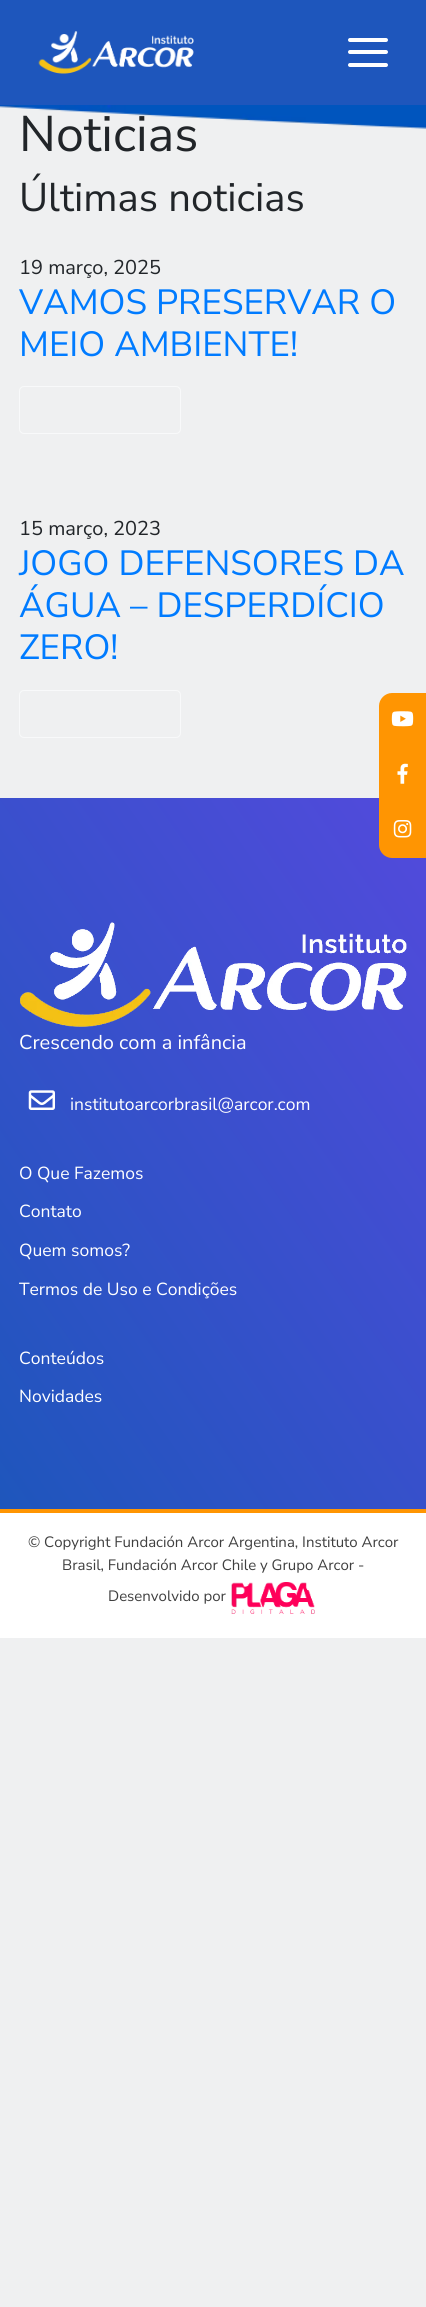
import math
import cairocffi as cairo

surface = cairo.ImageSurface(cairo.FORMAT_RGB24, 426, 2307)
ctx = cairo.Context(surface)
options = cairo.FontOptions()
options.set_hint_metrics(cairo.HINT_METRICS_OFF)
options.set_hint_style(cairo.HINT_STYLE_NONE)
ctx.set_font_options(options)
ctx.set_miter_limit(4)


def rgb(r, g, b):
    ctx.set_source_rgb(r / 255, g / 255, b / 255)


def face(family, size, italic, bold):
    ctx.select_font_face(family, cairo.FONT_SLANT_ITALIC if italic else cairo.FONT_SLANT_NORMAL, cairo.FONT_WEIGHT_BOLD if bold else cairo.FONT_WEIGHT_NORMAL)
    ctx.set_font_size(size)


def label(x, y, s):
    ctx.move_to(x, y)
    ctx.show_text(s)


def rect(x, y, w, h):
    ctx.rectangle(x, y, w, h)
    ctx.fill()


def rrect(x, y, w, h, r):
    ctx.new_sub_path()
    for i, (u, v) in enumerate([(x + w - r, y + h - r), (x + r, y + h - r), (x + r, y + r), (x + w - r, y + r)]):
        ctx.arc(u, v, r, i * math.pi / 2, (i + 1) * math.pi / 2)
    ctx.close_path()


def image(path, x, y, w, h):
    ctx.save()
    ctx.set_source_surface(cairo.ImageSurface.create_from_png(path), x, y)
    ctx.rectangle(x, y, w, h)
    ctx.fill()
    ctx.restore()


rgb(239, 240, 241)
ctx.paint()
rgb(30, 86, 188)
rect(0, 0, 426, 105)
image('image0.png', 38, 31, 156, 43)
rgb(255, 255, 255)
rrect(348, 38, 40, 4, 2)
ctx.fill()
rrect(348, 50, 40, 4, 2)
ctx.fill()
rrect(348, 63, 40, 4, 2)
ctx.fill()
image('image1.png', 0, 105, 426, 24)
face('Nunito Sans', 50, 0, 0)
rgb(33, 37, 41)
label(19, 151, 'Noticias')
face('Nunito Sans', 40, 0, 0)
label(19, 211, 'Últimas noticias')
face('Nunito Sans', 20, 0, 0)
label(19, 274, '19 março, 2025')
face('Nunito Sans', 35, 0, 0)
rgb(0, 123, 255)
label(19, 314, 'VAMOS PRESERVAR O')
label(19, 356, 'MEIO AMBIENTE!')
rrect(19.5, 386.5, 161, 47, 4.5)
rgb(248, 249, 250)
ctx.set_line_width(1)
ctx.stroke()
face('Nunito Sans', 20, 0, 0)
rgb(33, 37, 41)
label(19, 535, '15 março, 2023')
face('Nunito Sans', 35, 0, 0)
rgb(0, 123, 255)
label(19, 575, 'JOGO DEFENSORES DA')
label(19, 617, 'ÁGUA – DESPERDÍCIO')
label(19, 659, 'ZERO!')
rrect(19.5, 690.5, 161, 47, 4.5)
rgb(248, 249, 250)
ctx.stroke()
gradient = cairo.LinearGradient(-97, 1370, 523, 936)
gradient.add_color_stop_rgba(0, 0.118, 0.337, 0.737, 1)
gradient.add_color_stop_rgba(1, 0.325, 0.29, 0.863, 1)
ctx.set_source(gradient)
rect(0, 798, 426, 711)
rgb(255, 149, 2)
ctx.new_path()
ctx.move_to(392, 693)
ctx.line_to(426, 693)
ctx.line_to(426, 858)
ctx.line_to(392, 858)
ctx.curve_to(385, 858, 379, 852, 379, 845)
ctx.line_to(379, 706)
ctx.curve_to(379, 699, 385, 693, 392, 693)
ctx.close_path()
ctx.fill()
image('image2.png', 391, 711, 23, 16)
image('image3.png', 397, 763, 11, 21)
image('image4.png', 393, 820, 19, 18)
image('image5.png', 20, 922, 387, 105)
face('Nunito Sans', 20, 0, 0)
rgb(255, 255, 255)
label(19, 1049, 'Crescendo com a infância')
image('image6.png', 28, 1090, 27, 20)
face('Nunito Sans', 17.5, 0, 0)
label(70, 1110, 'institutoarcorbrasil@arcor.com')
label(19, 1179, 'O Que Fazemos')
label(19, 1217, 'Contato')
label(19, 1256, 'Quem somos?')
label(19, 1295, 'Termos de Uso e Condições')
label(19, 1364, 'Conteúdos')
label(19, 1402, 'Novidades')
rect(0, 1513, 426, 125)
rgb(255, 149, 2)
rect(0, 1509, 426, 4)
face('Nunito Sans', 15, 0, 0)
rgb(63, 63, 63)
label(28, 1547, '© Copyright Fundación Arcor Argentina, Instituto Arcor')
label(62, 1570, 'Brasil, Fundación Arcor Chile y Grupo Arcor -')
label(108, 1601, 'Desenvolvido por')
image('image7.png', 231, 1582, 84, 32)
surface.write_to_png('render.png')
